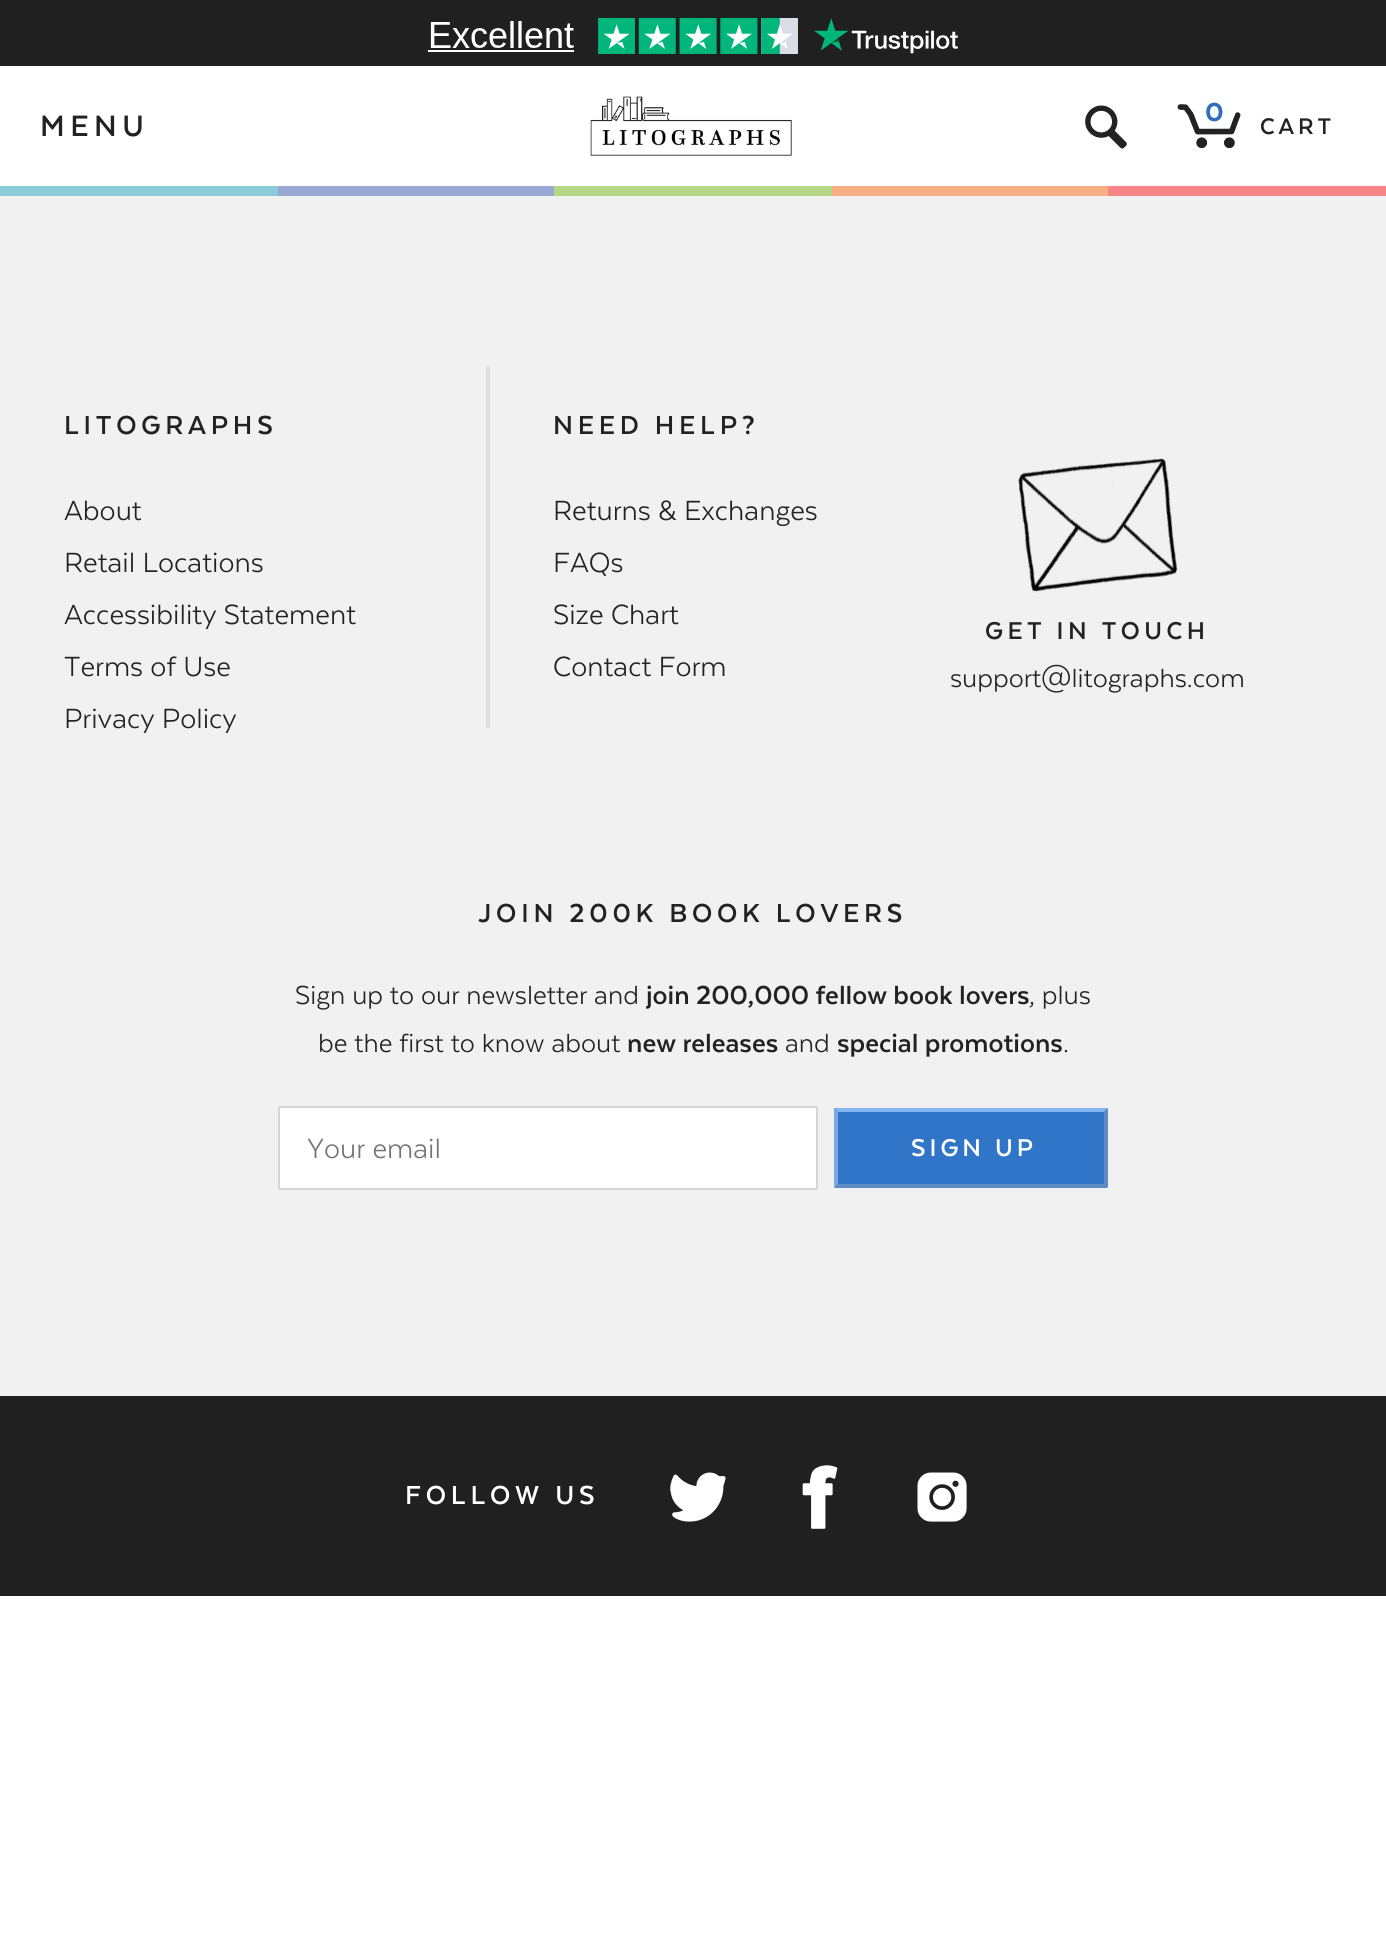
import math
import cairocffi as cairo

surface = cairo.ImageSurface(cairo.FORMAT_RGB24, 1386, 1936)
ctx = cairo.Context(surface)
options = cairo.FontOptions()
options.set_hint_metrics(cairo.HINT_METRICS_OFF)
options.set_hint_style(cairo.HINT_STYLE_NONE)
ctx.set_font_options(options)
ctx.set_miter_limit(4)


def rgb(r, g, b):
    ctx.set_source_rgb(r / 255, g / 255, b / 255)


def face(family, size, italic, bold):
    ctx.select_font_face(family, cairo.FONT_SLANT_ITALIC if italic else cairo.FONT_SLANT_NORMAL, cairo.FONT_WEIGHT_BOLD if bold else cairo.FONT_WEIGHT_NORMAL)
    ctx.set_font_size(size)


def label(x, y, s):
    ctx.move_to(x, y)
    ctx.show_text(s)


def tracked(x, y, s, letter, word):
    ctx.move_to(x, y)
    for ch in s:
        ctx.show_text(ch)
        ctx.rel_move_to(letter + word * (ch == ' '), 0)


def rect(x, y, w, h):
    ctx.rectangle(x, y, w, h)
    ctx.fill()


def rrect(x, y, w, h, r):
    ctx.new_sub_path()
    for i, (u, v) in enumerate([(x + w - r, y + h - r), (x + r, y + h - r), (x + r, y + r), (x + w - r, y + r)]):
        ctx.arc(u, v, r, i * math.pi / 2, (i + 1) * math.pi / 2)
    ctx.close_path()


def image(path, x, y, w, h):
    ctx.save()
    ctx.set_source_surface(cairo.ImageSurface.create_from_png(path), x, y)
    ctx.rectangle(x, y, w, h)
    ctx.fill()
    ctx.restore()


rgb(255, 255, 255)
ctx.paint()
rgb(32, 32, 32)
rect(0, 0, 1386, 66)
image('image0.png', 427, 18, 531, 36)
face('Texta', 34, 0, 0)
rgb(34, 34, 34)
tracked(40, 136, 'MENU', 5.5, 0)
image('image1.png', 590, 96, 202, 60)
face('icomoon', 60, 0, 0)
label(1076, 152, 's')
face('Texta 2', 30, 0, 0)
rgb(46, 110, 189)
tracked(1205, 121, '0', 2, 0)
face('icomoon', 60, 0, 0)
rgb(34, 34, 34)
tracked(1169, 151, '8', 2, 0)
face('Texta', 26, 0, 0)
tracked(1260, 134, 'CART', 4, 0)
rgb(241, 241, 241)
rect(0, 196, 1386, 1200)
rgb(138, 204, 218)
rect(0, 186, 278, 10)
rgb(154, 169, 212)
rect(278, 186, 276, 10)
rgb(181, 214, 133)
rect(554, 186, 278, 10)
rgb(248, 174, 131)
rect(832, 186, 276, 10)
rgb(247, 133, 135)
rect(1108, 186, 278, 10)
face('Texta', 30, 0, 0)
rgb(34, 34, 34)
tracked(64, 434, 'LITOGRAPHS', 4.8, 0)
face('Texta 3', 32, 0, 0)
label(64, 520, 'About')
label(64, 572, 'Retail Locations')
label(64, 624, 'Accessibility Statement')
label(64, 676, 'Terms of Use')
label(64, 728, 'Privacy Policy')
rgb(224, 224, 224)
rect(486, 366, 4, 362)
face('Texta', 30, 0, 0)
rgb(34, 34, 34)
tracked(553, 434, 'NEED HELP?', 4.8, 0)
face('Texta 3', 32, 0, 0)
label(553, 520, 'Returns & Exchanges')
label(553, 572, 'FAQs')
label(553, 624, 'Size Chart')
label(553, 676, 'Contact Form')
image('image2.png', 1018, 458, 160, 140)
face('Texta', 28, 0, 0)
tracked(985, 639, 'GET IN TOUCH', 4.5, 0)
face('Texta 3', 30, 0, 0)
label(950, 687, 'support@litographs.com')
face('Texta', 30, 0, 0)
tracked(478, 922, 'JOIN 200K BOOK LOVERS', 4.8, 0)
face('Texta 3', 30, 0, 0)
label(295, 1004, 'Sign up to our newsletter and')
face('Texta', 30, 0, 0)
label(646, 1004, 'join 200,000 fellow book lovers')
face('Texta 3', 30, 0, 0)
label(1029, 1004, ', plus')
label(318, 1052, 'be the first to know about')
face('Texta', 30, 0, 0)
label(627, 1052, 'new releases')
face('Texta 3', 30, 0, 0)
label(785, 1052, 'and')
face('Texta', 30, 0, 0)
label(837, 1052, 'special promotions')
face('Texta 3', 30, 0, 0)
label(1063, 1052, '.')
rgb(255, 255, 255)
rrect(279, 1107, 538, 82, 1)
ctx.fill_preserve()
rgb(213, 213, 213)
ctx.stroke()
face('Texta 3', 32, 0, 0)
rgb(117, 117, 117)
label(307, 1158, 'Your email')
rgb(49, 117, 201)
rrect(834, 1108, 274, 80, 2)
ctx.fill()
rgb(132, 181, 243)
ctx.new_path()
ctx.move_to(836, 1108)
ctx.line_to(835, 1109)
ctx.line_to(838, 1112)
ctx.line_to(1104, 1112)
ctx.line_to(1107, 1109)
ctx.line_to(1106, 1108)
ctx.close_path()
ctx.fill()
rgb(96, 140, 195)
ctx.new_path()
ctx.move_to(1108, 1186)
ctx.line_to(1108, 1110)
ctx.line_to(1107, 1109)
ctx.line_to(1104, 1112)
ctx.line_to(1104, 1184)
ctx.line_to(1107, 1187)
ctx.close_path()
ctx.fill()
ctx.new_path()
ctx.move_to(836, 1188)
ctx.line_to(1106, 1188)
ctx.line_to(1107, 1187)
ctx.line_to(1104, 1184)
ctx.line_to(838, 1184)
ctx.line_to(835, 1187)
ctx.close_path()
ctx.fill()
rgb(124, 170, 228)
ctx.new_path()
ctx.move_to(838, 1112)
ctx.line_to(835, 1109)
ctx.line_to(834, 1110)
ctx.line_to(834, 1186)
ctx.line_to(835, 1187)
ctx.line_to(838, 1184)
ctx.close_path()
ctx.fill()
face('Texta', 28, 0, 0)
rgb(255, 255, 255)
tracked(911, 1156, 'SIGN UP', 4, 0)
rgb(32, 32, 32)
rect(0, 1396, 1386, 200)
face('Texta', 30, 0, 0)
rgb(255, 255, 255)
tracked(405, 1504, 'FOLLOW US', 4.8, 0)
image('image3.png', 670, 1472, 56, 50)
image('image4.png', 802, 1465, 36, 64)
image('image5.png', 917, 1472, 50, 50)
surface.write_to_png('render.png')
